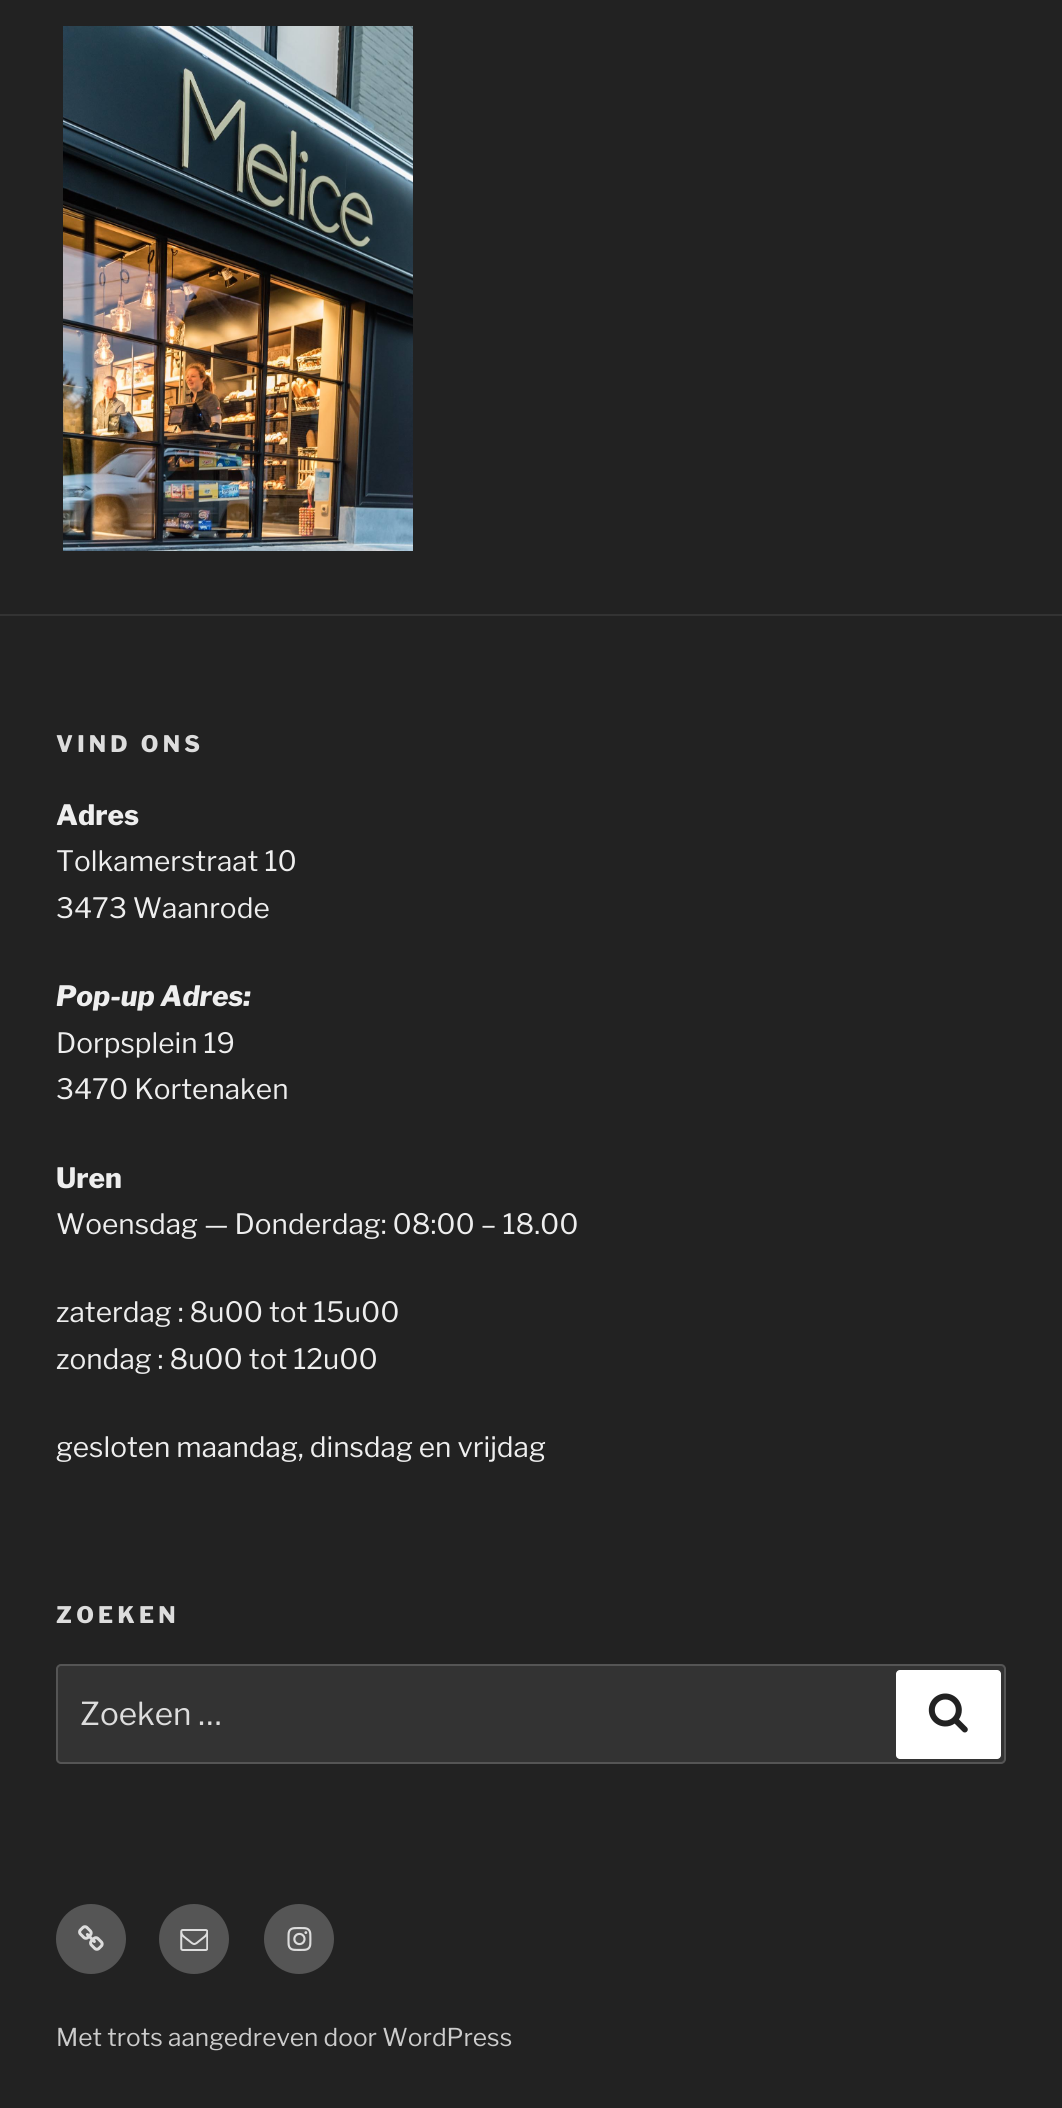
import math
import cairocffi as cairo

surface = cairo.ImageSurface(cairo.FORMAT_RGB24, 1062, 2108)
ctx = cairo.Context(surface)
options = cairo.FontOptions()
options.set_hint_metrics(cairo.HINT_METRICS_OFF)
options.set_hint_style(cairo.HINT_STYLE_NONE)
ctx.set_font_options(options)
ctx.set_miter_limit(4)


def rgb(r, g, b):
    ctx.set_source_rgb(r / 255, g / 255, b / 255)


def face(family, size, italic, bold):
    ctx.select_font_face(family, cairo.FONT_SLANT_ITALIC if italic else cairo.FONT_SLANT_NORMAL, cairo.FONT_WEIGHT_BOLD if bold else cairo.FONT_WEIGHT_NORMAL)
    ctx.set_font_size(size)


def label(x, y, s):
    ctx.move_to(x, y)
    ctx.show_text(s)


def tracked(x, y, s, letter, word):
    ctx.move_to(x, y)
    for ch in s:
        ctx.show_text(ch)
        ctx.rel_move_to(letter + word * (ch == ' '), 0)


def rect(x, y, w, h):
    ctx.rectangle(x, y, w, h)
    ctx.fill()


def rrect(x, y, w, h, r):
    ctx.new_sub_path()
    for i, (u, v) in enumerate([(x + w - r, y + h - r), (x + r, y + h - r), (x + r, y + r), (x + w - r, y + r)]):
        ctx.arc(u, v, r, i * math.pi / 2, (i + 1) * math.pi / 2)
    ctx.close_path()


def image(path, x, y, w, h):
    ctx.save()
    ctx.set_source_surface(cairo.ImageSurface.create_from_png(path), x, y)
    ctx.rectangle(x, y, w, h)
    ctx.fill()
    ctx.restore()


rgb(34, 34, 34)
ctx.paint()
image('image0.png', 63, 26, 350, 525)
rgb(51, 51, 51)
rect(0, 614, 1062, 2)
face('Libre Franklin Thin', 22.75, 0, 0)
rgb(221, 221, 221)
tracked(56, 752, 'VIND ONS', 4.25, 0)
face('Libre Franklin Thin', 28, 0, 0)
rgb(238, 238, 238)
label(56, 825, 'Adres')
face('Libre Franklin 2 Thin', 28, 0, 0)
label(56, 871, 'Tolkamerstraat 10')
label(56, 918, '3473 Waanrode')
face('Libre Franklin Thin', 28, 1, 0)
label(56, 1006, 'Pop-up Adres:')
face('Libre Franklin 2 Thin', 28, 0, 0)
label(56, 1053, 'Dorpsplein 19')
label(56, 1099, '3470 Kortenaken')
face('Libre Franklin Thin', 28, 0, 0)
label(56, 1188, 'Uren')
face('Libre Franklin 2 Thin', 28, 0, 0)
label(56, 1234, 'Woensdag — Donderdag: 08:00 – 18.00')
label(56, 1322, 'zaterdag : 8u00 tot 15u00')
label(56, 1369, 'zondag : 8u00 tot 12u00')
label(56, 1457, 'gesloten maandag, dinsdag en vrijdag')
face('Libre Franklin Thin', 22.75, 0, 0)
rgb(221, 221, 221)
tracked(56, 1623, 'ZOEKEN', 4.25, 0)
rgb(51, 51, 51)
rrect(57, 1665, 948, 98, 4)
ctx.fill_preserve()
rgb(85, 85, 85)
ctx.stroke()
face('Libre Franklin 2 Thin', 31.5, 0, 0)
rgb(221, 221, 221)
label(80, 1725, 'Zoeken …')
rgb(255, 255, 255)
rrect(896, 1670, 105, 89, 4)
ctx.fill()
image('image1.png', 928, 1693, 40, 40)
rgb(85, 85, 85)
ctx.arc(91, 1939, 35, 0, 2 * math.pi)
ctx.fill()
image('image2.png', 78, 1925, 26, 26)
ctx.arc(194, 1939, 35, 0, 2 * math.pi)
ctx.fill()
image('image3.png', 180, 1929, 28, 22)
ctx.arc(299, 1939, 35, 0, 2 * math.pi)
ctx.fill()
image('image4.png', 287, 1927, 25, 24)
face('Libre Franklin 2 Thin', 24.5, 0, 0)
rgb(204, 204, 204)
label(56, 2046, 'Met trots aangedreven door WordPress')
surface.write_to_png('render.png')
